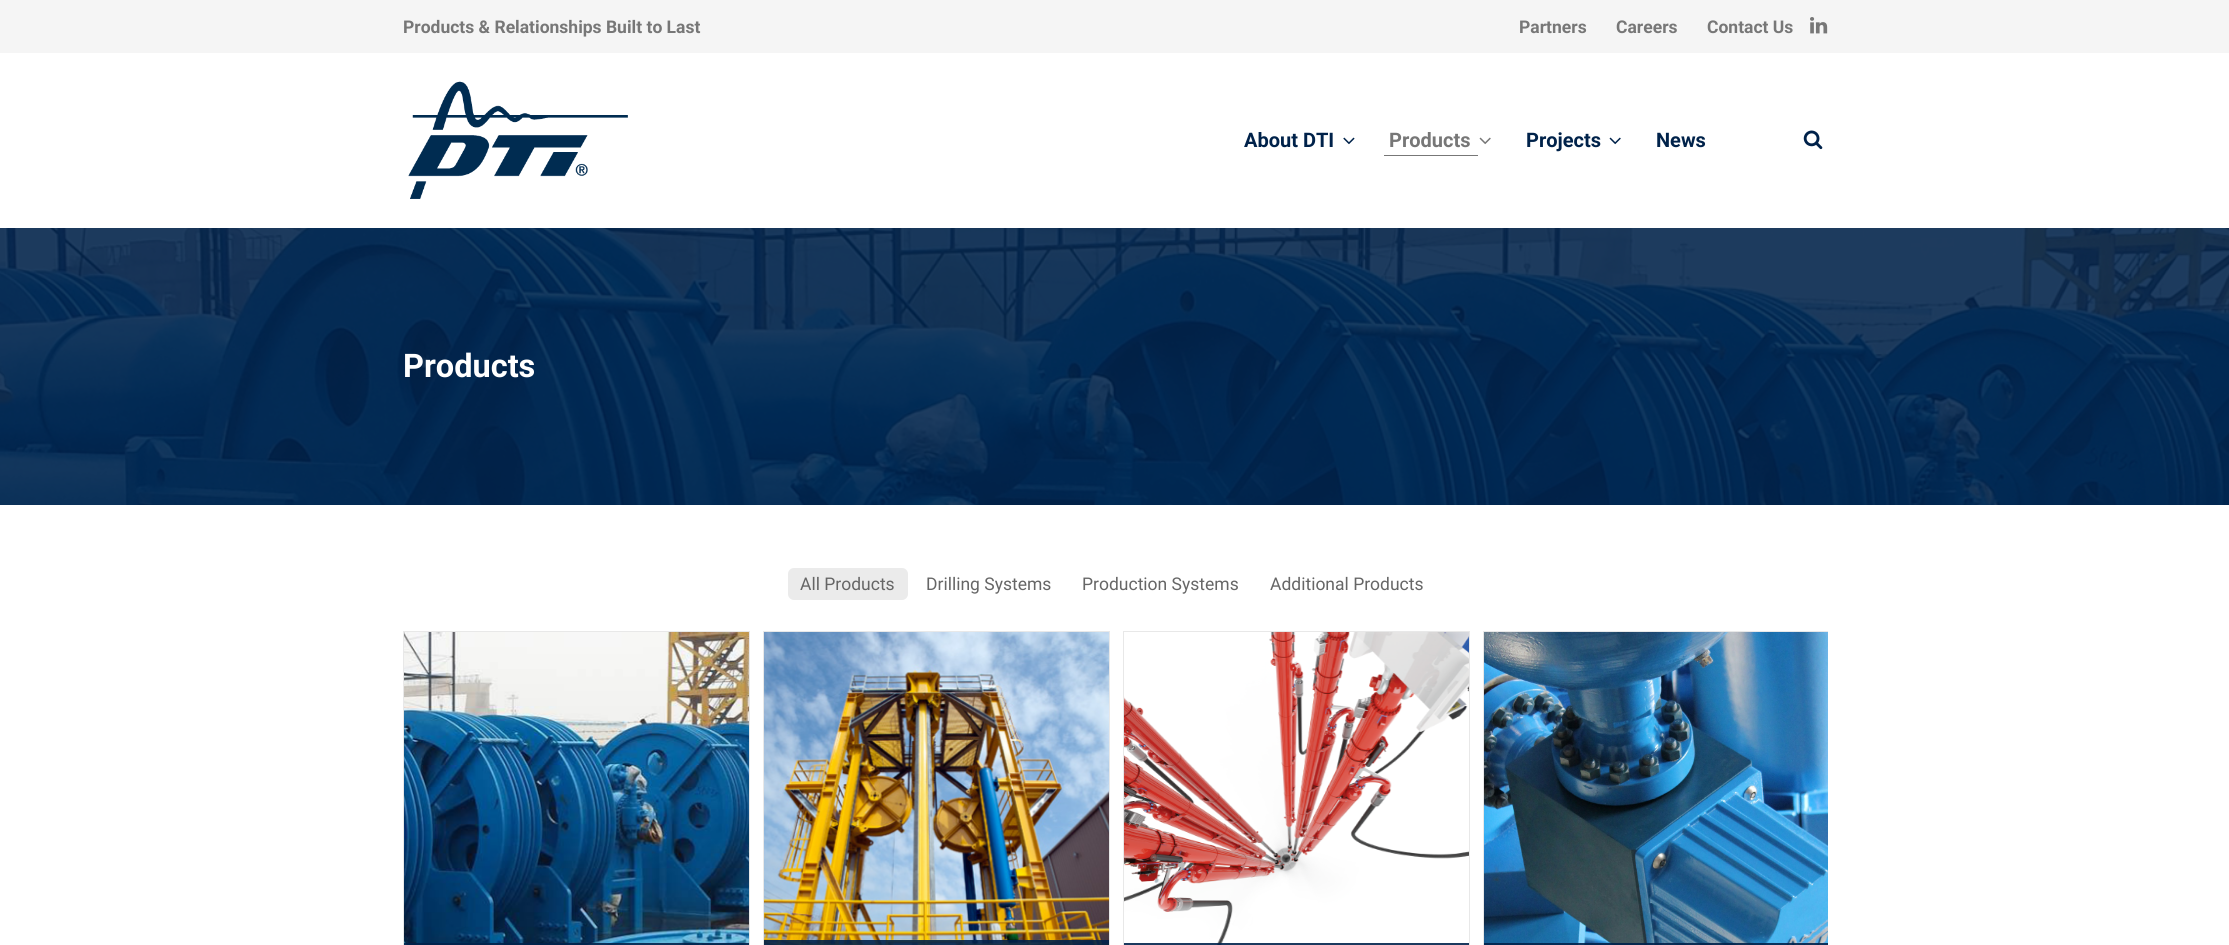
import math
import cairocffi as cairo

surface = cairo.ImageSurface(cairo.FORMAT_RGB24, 2229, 945)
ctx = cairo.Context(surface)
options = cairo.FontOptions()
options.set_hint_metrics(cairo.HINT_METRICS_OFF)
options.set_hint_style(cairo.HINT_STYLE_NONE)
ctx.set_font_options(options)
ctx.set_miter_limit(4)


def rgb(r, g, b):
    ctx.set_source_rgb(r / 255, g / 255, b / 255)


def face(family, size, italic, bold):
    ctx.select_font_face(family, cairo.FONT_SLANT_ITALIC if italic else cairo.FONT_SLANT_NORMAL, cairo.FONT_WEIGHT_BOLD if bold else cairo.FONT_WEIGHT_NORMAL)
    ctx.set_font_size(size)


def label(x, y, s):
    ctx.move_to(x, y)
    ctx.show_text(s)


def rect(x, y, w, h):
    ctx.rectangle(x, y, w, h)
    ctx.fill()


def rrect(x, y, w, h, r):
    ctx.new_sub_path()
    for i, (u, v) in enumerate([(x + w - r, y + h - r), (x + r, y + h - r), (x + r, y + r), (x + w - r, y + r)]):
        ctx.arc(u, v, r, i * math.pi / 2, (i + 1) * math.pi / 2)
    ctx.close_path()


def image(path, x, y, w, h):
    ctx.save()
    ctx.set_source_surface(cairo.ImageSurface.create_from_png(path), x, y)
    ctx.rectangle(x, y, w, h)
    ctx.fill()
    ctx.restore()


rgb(255, 255, 255)
ctx.paint()
rgb(245, 245, 245)
rect(0, 0, 2229, 53)
face('Roboto', 17.5, 0, 1)
rgb(119, 119, 119)
label(403, 33, 'Products & Relationships Built to Last')
label(1519, 33, 'Partners')
label(1616, 33, 'Careers')
label(1707, 33, 'Contact Us')
image('image0.png', 1810, 17, 18, 17)
image('image1.png', 408, 81, 220, 118)
face('Roboto', 20, 0, 1)
rgb(0, 34, 74)
label(1244, 147, 'About DTI')
image('image2.png', 1343, 137, 12, 8)
rgb(119, 119, 119)
label(1389, 147, 'Products')
image('image3.png', 1479, 137, 12, 8)
rect(1384, 155, 94, 1)
rgb(0, 34, 74)
label(1526, 147, 'Projects')
image('image4.png', 1609, 137, 12, 8)
label(1656, 147, 'News')
image('image5.png', 1803, 130, 20, 20)
image('image6.png', 0, 228, 2229, 277)
face('Roboto', 32.5, 0, 1)
rgb(255, 255, 255)
label(403, 377, 'Products')
rgb(235, 235, 235)
rrect(788, 568, 120, 32, 6)
ctx.fill()
face('Roboto', 17.5, 0, 0)
rgb(102, 102, 102)
label(800, 590, 'All Products')
label(926, 590, 'Drilling Systems')
label(1082, 590, 'Production Systems')
label(1270, 590, 'Additional Products')
ctx.rectangle(403.5, 631.5, 346, 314)
rgb(232, 232, 232)
ctx.set_line_width(1)
ctx.stroke()
image('image7.png', 404, 632, 345, 313)
ctx.set_source_rgba(0, 0.192, 0.392, 0.3)
rect(404, 943, 345, 2)
ctx.set_source_rgba(0, 0.133, 0.29, 0.85)
rect(404, 943, 345, 2)
ctx.rectangle(763.5, 631.5, 346, 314)
rgb(232, 232, 232)
ctx.stroke()
image('image8.png', 764, 632, 345, 313)
ctx.set_source_rgba(0, 0.192, 0.392, 0.3)
rect(764, 940, 345, 5)
ctx.set_source_rgba(0, 0.133, 0.29, 0.85)
rect(764, 940, 345, 5)
ctx.rectangle(1123.5, 631.5, 346, 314)
rgb(232, 232, 232)
ctx.stroke()
image('image9.png', 1124, 632, 345, 313)
ctx.set_source_rgba(0, 0.192, 0.392, 0.3)
rect(1124, 943, 345, 2)
ctx.set_source_rgba(0, 0.133, 0.29, 0.85)
rect(1124, 943, 345, 2)
ctx.save()
ctx.rectangle(403, 631, 1425, 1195)
ctx.clip()
ctx.rectangle(1483.5, 631.5, 346, 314)
rgb(232, 232, 232)
ctx.stroke()
ctx.restore()
image('image10.png', 1484, 632, 344, 313)
ctx.set_source_rgba(0, 0.192, 0.392, 0.3)
rect(1484, 943, 344, 2)
ctx.set_source_rgba(0, 0.133, 0.29, 0.85)
rect(1484, 943, 344, 2)
surface.write_to_png('render.png')
